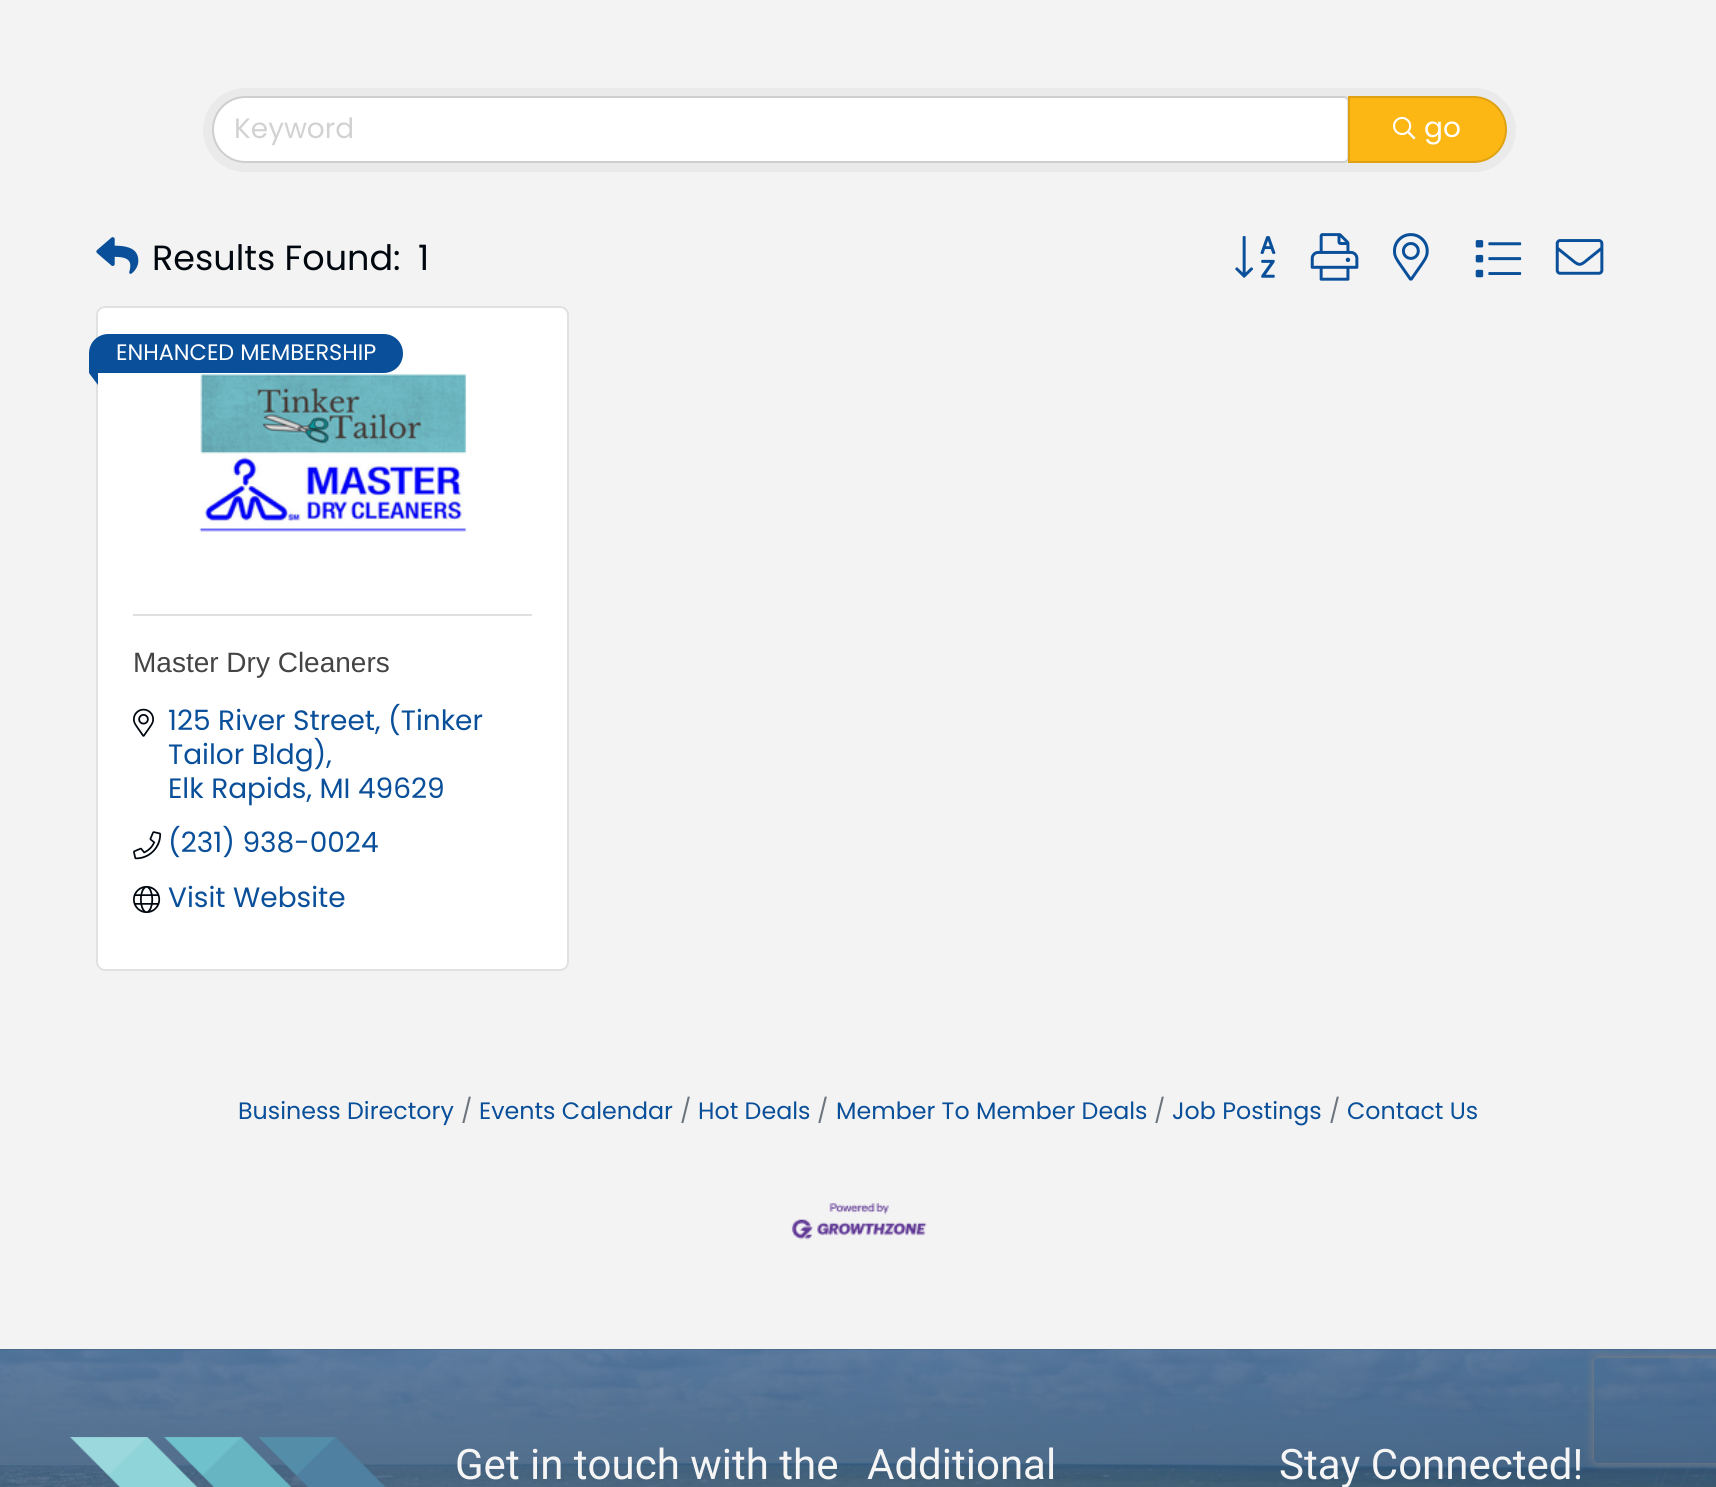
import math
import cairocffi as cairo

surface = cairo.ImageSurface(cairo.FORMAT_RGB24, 1716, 1487)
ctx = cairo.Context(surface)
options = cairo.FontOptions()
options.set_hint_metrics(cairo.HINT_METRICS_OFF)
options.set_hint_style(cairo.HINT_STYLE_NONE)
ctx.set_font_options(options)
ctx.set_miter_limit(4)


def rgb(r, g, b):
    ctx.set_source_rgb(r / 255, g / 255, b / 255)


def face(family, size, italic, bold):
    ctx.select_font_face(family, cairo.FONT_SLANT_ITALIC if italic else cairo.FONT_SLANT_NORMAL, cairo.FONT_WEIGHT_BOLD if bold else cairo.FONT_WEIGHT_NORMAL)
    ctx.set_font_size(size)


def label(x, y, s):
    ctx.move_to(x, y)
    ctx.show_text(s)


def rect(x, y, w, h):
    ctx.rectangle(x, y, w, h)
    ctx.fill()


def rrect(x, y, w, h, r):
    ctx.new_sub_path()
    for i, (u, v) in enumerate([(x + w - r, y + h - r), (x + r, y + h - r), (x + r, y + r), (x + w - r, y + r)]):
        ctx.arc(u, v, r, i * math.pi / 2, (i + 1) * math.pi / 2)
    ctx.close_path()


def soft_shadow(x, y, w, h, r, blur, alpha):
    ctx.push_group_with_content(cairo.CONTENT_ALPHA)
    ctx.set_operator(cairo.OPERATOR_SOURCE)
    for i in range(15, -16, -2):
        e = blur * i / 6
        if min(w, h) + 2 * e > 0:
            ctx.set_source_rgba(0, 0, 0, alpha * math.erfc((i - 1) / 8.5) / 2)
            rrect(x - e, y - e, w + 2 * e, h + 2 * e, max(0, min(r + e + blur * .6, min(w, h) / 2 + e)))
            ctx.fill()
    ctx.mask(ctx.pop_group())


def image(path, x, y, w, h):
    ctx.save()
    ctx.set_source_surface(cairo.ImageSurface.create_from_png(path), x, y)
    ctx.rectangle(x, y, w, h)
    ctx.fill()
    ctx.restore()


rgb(243, 243, 243)
ctx.paint()
rgb(234, 234, 234)
rrect(203, 88, 1313, 84, 42)
ctx.fill()
rgb(255, 255, 255)
ctx.new_path()
ctx.move_to(245.5, 98)
ctx.line_to(1344, 98)
ctx.curve_to(1346, 98, 1348, 100, 1348, 102)
ctx.line_to(1348, 157)
ctx.curve_to(1348, 159, 1346, 161, 1344, 161)
ctx.line_to(245.5, 161)
ctx.curve_to(228, 161, 214, 147, 214, 129.5)
ctx.curve_to(214, 112, 228, 98, 245.5, 98)
ctx.close_path()
ctx.fill()
ctx.new_path()
ctx.move_to(245.5, 97)
ctx.line_to(1344, 97)
ctx.curve_to(1346, 97, 1348, 99, 1348, 101)
ctx.line_to(1348, 158)
ctx.curve_to(1348, 160, 1346, 162, 1344, 162)
ctx.line_to(245.5, 162)
ctx.curve_to(227.5, 162, 213, 147.5, 213, 129.5)
ctx.curve_to(213, 111.5, 227.5, 97, 245.5, 97)
ctx.close_path()
ctx.set_source_rgba(0, 0, 0, 0.12)
ctx.stroke()
face('Poppins', 28, 0, 0)
rgb(210, 210, 210)
label(234, 138, 'Keyword')
rgb(253, 183, 20)
ctx.new_path()
ctx.move_to(1348, 96)
ctx.line_to(1473.5, 96)
ctx.curve_to(1492, 96, 1507, 111, 1507, 129.5)
ctx.curve_to(1507, 148, 1492, 163, 1473.5, 163)
ctx.line_to(1348, 163)
ctx.close_path()
ctx.fill()
ctx.new_path()
ctx.move_to(1349, 97)
ctx.line_to(1473.5, 97)
ctx.curve_to(1491.5, 97, 1506, 111.5, 1506, 129.5)
ctx.curve_to(1506, 147.5, 1491.5, 162, 1473.5, 162)
ctx.line_to(1349, 162)
ctx.close_path()
ctx.set_source_rgba(0, 0, 0, 0.12)
ctx.stroke()
image('image0.png', 1393, 116, 23, 24)
rgb(255, 255, 255)
label(1424, 137, 'go')
image('image1.png', 96, 237, 43, 37)
face('Poppins', 35, 0, 0)
rgb(1, 7, 15)
label(152, 270, 'Results Found:')
label(418, 270, '1')
image('image2.png', 1235, 236, 41, 42)
image('image3.png', 1310, 233, 49, 48)
image('image4.png', 1393, 233, 36, 48)
image('image5.png', 1475, 240, 47, 38)
image('image6.png', 1555, 239, 49, 36)
rgb(255, 255, 255)
rrect(96, 306, 473, 665, 9)
ctx.fill()
rrect(97, 307, 471, 663, 8)
ctx.set_source_rgba(0, 0, 0, 0.12)
ctx.stroke()
rgb(10, 79, 153)
ctx.new_path()
ctx.move_to(108.5, 334)
ctx.line_to(383.5, 334)
ctx.curve_to(394.5, 334, 403, 342.5, 403, 353.5)
ctx.curve_to(403, 364.5, 394.5, 373, 383.5, 373)
ctx.line_to(90, 373)
ctx.curve_to(89.5, 373, 89, 372.5, 89, 372)
ctx.line_to(89, 353.5)
ctx.curve_to(89, 342.5, 97.5, 334, 108.5, 334)
ctx.close_path()
ctx.fill()
face('Poppins', 22.4, 0, 0)
rgb(255, 255, 255)
label(116, 360, 'ENHANCED MEMBERSHIP')
rgb(10, 79, 153)
ctx.new_path()
ctx.move_to(98, 360.5)
ctx.line_to(98, 385)
ctx.line_to(89, 373)
ctx.close_path()
ctx.fill()
image('image7.png', 199, 374, 268, 158)
rgb(223, 223, 223)
rect(133, 614, 399, 2)
face('Liberation Sans', 28, 0, 0)
rgb(68, 68, 68)
label(133, 672, 'Master Dry Cleaners')
image('image8.png', 133, 708, 21, 29)
face('Poppins', 28, 0, 0)
rgb(10, 79, 153)
label(168, 730, '125 River Street, (Tinker')
label(168, 764, 'Tailor Bldg),')
label(168, 798, 'Elk Rapids, MI 49629')
image('image9.png', 133, 831, 29, 29)
label(168, 852, '(231) 938-0024')
image('image10.png', 133, 885, 28, 29)
label(168, 907, 'Visit Website')
face('Poppins', 23.75, 0, 0)
label(238, 1119, 'Business Directory')
rgb(108, 117, 125)
label(461, 1119, '/')
rgb(10, 79, 153)
label(479, 1119, 'Events Calendar')
rgb(108, 117, 125)
label(680, 1119, '/')
rgb(10, 79, 153)
label(698, 1119, 'Hot Deals')
rgb(108, 117, 125)
label(817, 1119, '/')
rgb(10, 79, 153)
label(836, 1119, 'Member To Member Deals')
rgb(108, 117, 125)
label(1154, 1119, '/')
rgb(10, 79, 153)
label(1172, 1119, 'Job Postings')
rgb(108, 117, 125)
label(1329, 1119, '/')
rgb(10, 79, 153)
label(1347, 1119, 'Contact Us')
image('image11.png', 791, 1203, 136, 37)
rgb(47, 47, 47)
rect(0, 1349, 1716, 1)
image('image12.png', 0, 1349, 1716, 138)
gradient = cairo.LinearGradient(858, 1349, 858, 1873)
gradient.add_color_stop_rgba(0, 0.255, 0.4, 0.557, 0.84)
gradient.add_color_stop_rgba(1, 0.039, 0.106, 0.176, 0.75)
ctx.set_source(gradient)
rect(0, 1349, 1716, 138)
image('image13.png', 70, 1437, 315, 50)
face('Roboto', 42, 0, 0)
rgb(245, 245, 245)
label(455, 1479, 'Get in touch with the')
label(867, 1479, 'Additional')
ctx.save()
ctx.set_fill_rule(cairo.FILL_RULE_EVEN_ODD)
ctx.new_path()
ctx.move_to(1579, 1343)
ctx.line_to(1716, 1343)
ctx.line_to(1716, 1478)
ctx.line_to(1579, 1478)
ctx.close_path()
ctx.move_to(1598, 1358)
ctx.line_to(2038, 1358)
ctx.curve_to(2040, 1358, 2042, 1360, 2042, 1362)
ctx.line_to(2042, 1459)
ctx.curve_to(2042, 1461, 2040, 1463, 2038, 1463)
ctx.line_to(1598, 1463)
ctx.curve_to(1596, 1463, 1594, 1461, 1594, 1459)
ctx.line_to(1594, 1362)
ctx.curve_to(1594, 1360, 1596, 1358, 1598, 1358)
ctx.close_path()
ctx.clip()
rgb(128, 128, 128)
soft_shadow(1594, 1358, 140, 105, 4, 4.5, 1)
ctx.restore()
label(1279, 1479, 'Stay Connected!')
surface.write_to_png('render.png')
